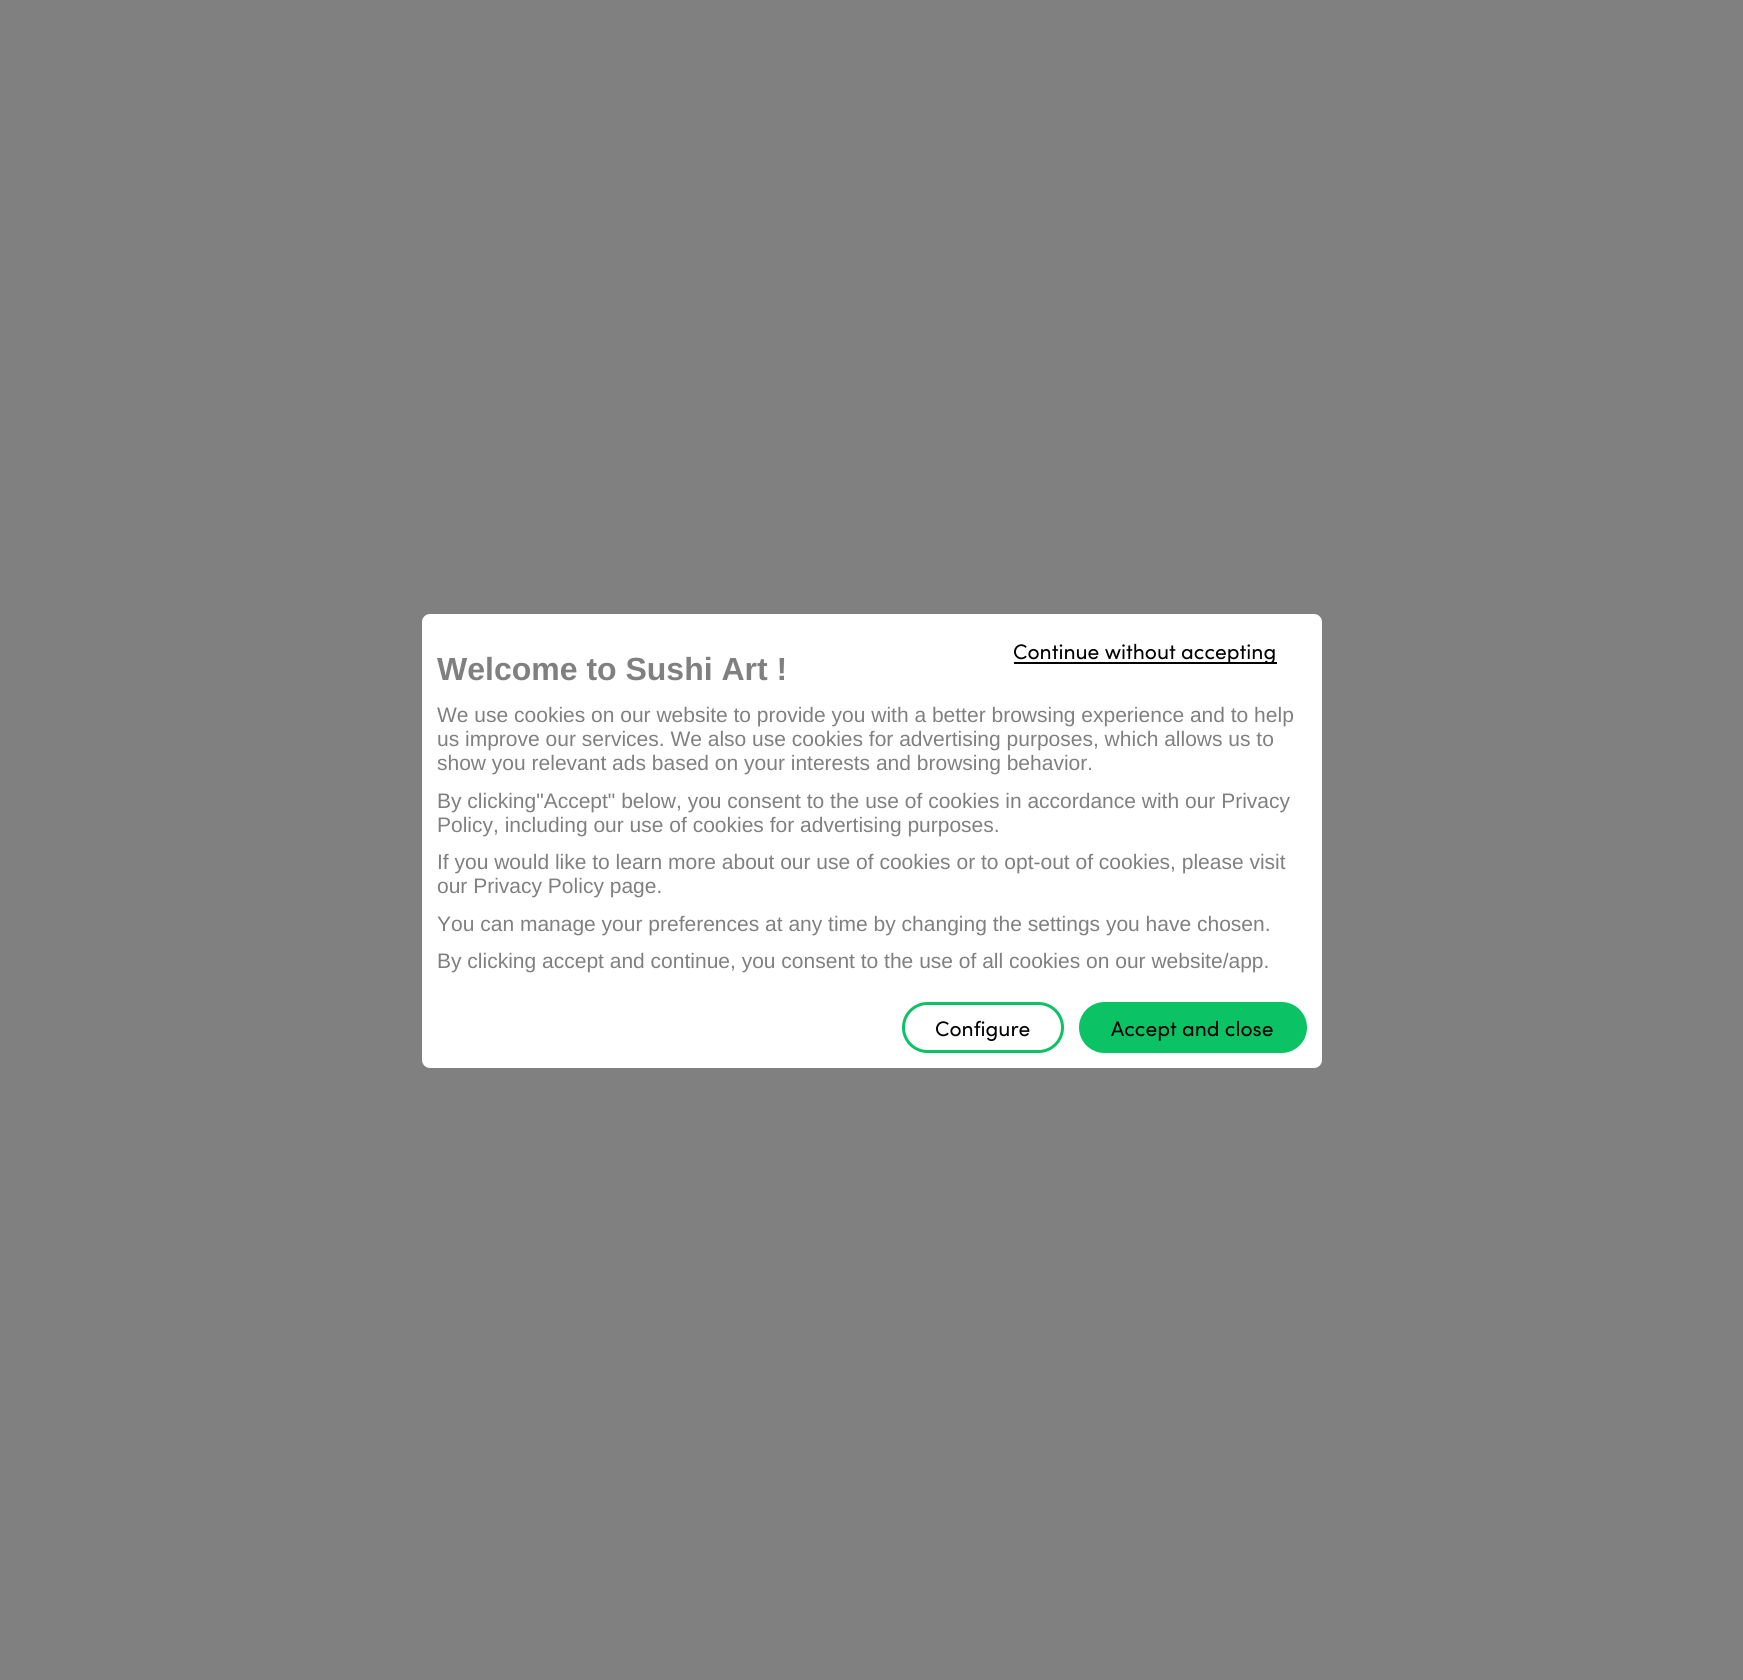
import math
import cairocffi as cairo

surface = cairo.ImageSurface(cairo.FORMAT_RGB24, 1743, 1680)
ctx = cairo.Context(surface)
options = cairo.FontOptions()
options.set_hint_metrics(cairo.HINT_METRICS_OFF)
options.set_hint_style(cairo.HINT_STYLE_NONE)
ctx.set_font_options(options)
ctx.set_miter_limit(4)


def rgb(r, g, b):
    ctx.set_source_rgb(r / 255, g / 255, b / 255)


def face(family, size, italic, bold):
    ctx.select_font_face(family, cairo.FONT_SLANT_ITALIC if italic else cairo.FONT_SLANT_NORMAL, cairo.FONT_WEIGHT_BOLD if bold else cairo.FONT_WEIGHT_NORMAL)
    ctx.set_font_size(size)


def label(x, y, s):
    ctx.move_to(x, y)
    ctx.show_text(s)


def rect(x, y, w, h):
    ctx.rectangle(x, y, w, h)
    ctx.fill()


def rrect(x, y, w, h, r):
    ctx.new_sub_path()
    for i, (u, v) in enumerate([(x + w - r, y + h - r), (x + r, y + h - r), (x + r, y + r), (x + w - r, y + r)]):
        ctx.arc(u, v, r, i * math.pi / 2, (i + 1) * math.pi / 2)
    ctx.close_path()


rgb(128, 128, 128)
ctx.paint()
rgb(255, 255, 255)
rrect(422, 614, 900, 454, 8)
ctx.fill()
rgb(0, 0, 0)
rect(1014, 662, 263, 2)
face('Sofia', 21, 0, 0)
label(1013, 659, 'Continue without accepting')
rrect(903.5, 1003.5, 159, 48, 24)
rgb(11, 194, 100)
ctx.set_line_width(3)
ctx.stroke()
rgb(0, 0, 0)
label(935, 1036, 'Configure')
rgb(11, 194, 100)
rrect(1080.5, 1003.5, 225, 48, 24)
ctx.fill_preserve()
ctx.stroke()
rgb(0, 0, 0)
label(1111, 1036, 'Accept and close')
face('Liberation Sans', 32, 0, 1)
rgb(128, 128, 128)
label(437, 680, 'Welcome to Sushi Art !')
face('Liberation Sans', 21, 0, 0)
label(437, 722, 'We use cookies on our website to provide you with a better browsing experience and to help')
label(437, 746, 'us improve our services. We also use cookies for advertising purposes, which allows us to')
label(437, 770, 'show you relevant ads based on your interests and browsing behavior.')
label(437, 808, 'By clicking"Accept" below, you consent to the use of cookies in accordance with our Privacy')
label(437, 832, 'Policy, including our use of cookies for advertising purposes.')
label(437, 869, 'If you would like to learn more about our use of cookies or to opt-out of cookies, please visit')
label(437, 893, 'our Privacy Policy page.')
label(437, 931, 'You can manage your preferences at any time by changing the settings you have chosen.')
label(437, 968, 'By clicking accept and continue, you consent to the use of all cookies on our website/app.')
surface.write_to_png('render.png')
